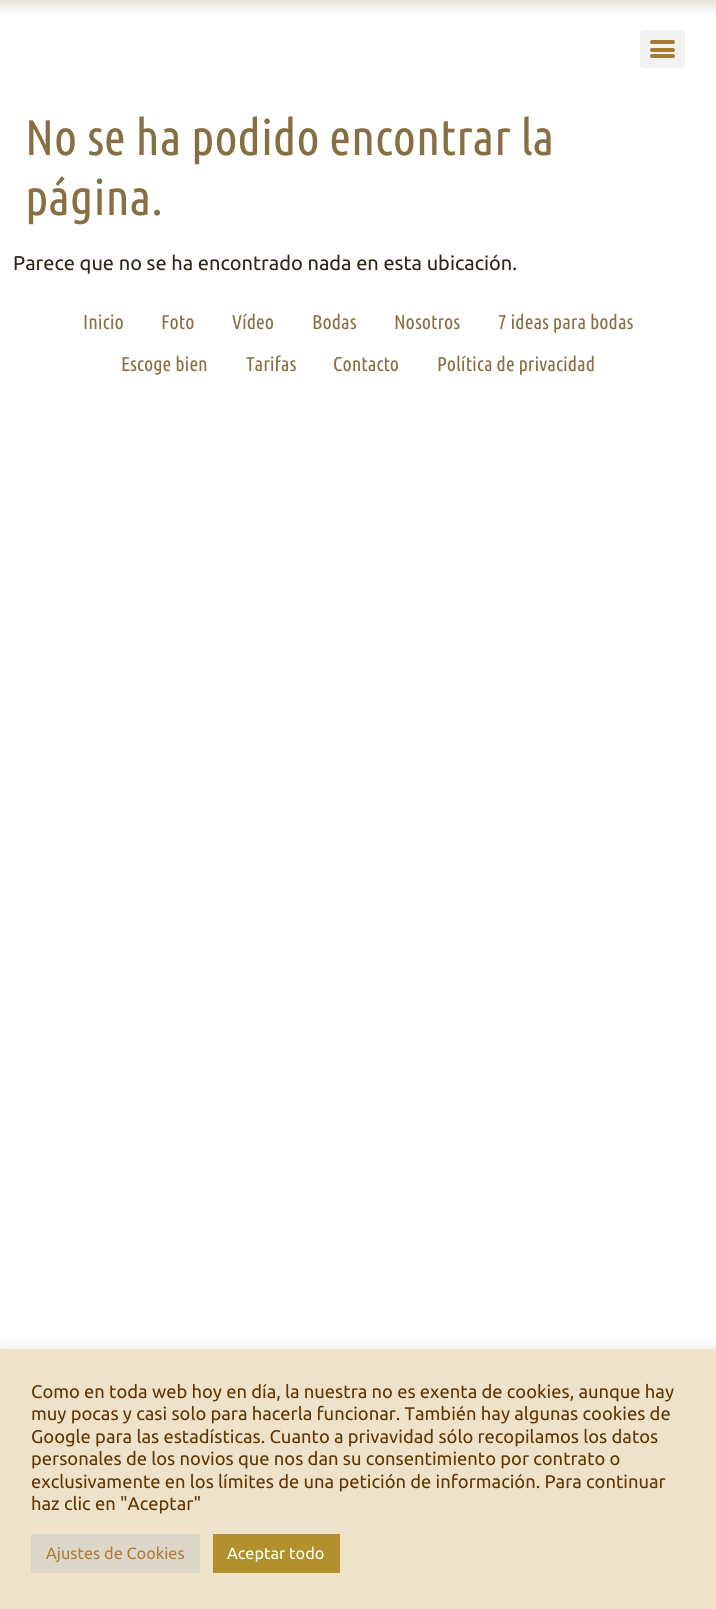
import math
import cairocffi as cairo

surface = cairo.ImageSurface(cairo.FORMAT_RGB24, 716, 1609)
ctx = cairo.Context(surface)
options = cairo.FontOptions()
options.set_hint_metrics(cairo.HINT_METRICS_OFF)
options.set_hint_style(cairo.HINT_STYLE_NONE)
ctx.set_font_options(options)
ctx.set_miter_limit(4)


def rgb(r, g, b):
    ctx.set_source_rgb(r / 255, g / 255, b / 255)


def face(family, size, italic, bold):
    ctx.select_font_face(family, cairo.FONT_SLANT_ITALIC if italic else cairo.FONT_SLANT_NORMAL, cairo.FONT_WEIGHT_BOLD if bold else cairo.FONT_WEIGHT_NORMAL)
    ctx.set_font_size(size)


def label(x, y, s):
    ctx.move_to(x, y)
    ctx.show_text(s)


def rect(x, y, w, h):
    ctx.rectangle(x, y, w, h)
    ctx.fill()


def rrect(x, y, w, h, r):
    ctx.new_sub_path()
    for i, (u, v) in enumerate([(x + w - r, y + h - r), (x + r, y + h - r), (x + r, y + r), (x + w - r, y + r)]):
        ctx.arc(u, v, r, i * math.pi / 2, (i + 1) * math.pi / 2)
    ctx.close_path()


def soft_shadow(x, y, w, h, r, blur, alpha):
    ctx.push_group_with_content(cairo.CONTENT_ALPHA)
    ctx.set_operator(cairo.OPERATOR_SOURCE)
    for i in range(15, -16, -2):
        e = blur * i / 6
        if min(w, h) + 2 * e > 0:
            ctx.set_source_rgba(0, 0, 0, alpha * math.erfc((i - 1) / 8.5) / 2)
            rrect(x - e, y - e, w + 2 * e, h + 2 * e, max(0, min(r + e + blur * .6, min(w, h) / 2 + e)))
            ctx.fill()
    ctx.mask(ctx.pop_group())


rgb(255, 255, 255)
ctx.paint()
gradient = cairo.LinearGradient(358, 0, 358, 98)
gradient.add_color_stop_rgba(0, 0.91, 0.894, 0.863, 1)
gradient.add_color_stop_rgba(0.15, 1, 1, 1, 1)
ctx.set_source(gradient)
rect(0, 0, 716, 14)
rgb(242, 242, 242)
rrect(640, 30, 45, 38, 4)
ctx.fill()
rgb(165, 124, 51)
rrect(650, 48, 25, 4, 2)
ctx.fill()
rrect(650, 40, 25, 4, 2)
ctx.fill()
rrect(650, 54, 25, 4, 2)
ctx.fill()
face('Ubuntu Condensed', 50, 0, 0)
rgb(135, 111, 68)
label(25, 155, 'No se ha podido encontrar la')
label(25, 215, 'página.')
face('Ubuntu', 20, 0, 0)
rgb(46, 37, 24)
label(13, 270, 'Parece que no se ha encontrado nada en esta ubicación.')
face('Ubuntu Condensed', 20, 0, 0)
rgb(135, 111, 68)
label(83, 329, 'Inicio')
label(161, 329, 'Foto')
label(232, 329, 'Vídeo')
label(312, 329, 'Bodas')
label(394, 329, 'Nosotros')
label(498, 329, '7 ideas para bodas')
label(121, 371, 'Escoge bien')
label(246, 371, 'Tarifas')
label(333, 371, 'Contacto')
label(437, 371, 'Política de privacidad')
rgb(172, 171, 171)
soft_shadow(0, 1348, 716, 261, 0, 6, 0.3)
rgb(239, 226, 203)
rect(0, 1349, 716, 260)
face('Ubuntu', 18.35, 0, 0)
rgb(96, 54, 0)
label(31, 1398, 'Como en toda web hoy en día, la nuestra no es exenta de cookies, aunque hay')
label(31, 1420, 'muy pocas y casi solo para hacerla funcionar. También hay algunas cookies de')
label(31, 1443, 'Google para las estadísticas. Cuanto a privavidad sólo recopilamos los datos')
label(31, 1465, 'personales de los novios que nos dan su consentimiento por contrato o')
label(31, 1488, 'exclusivamente en los límites de una petición de información. Para continuar')
label(31, 1510, 'haz clic en "Aceptar"')
rgb(221, 215, 201)
rect(31, 1534, 169, 39)
face('Ubuntu', 16.25, 0, 0)
rgb(173, 125, 53)
label(46, 1559, 'Ajustes de Cookies')
rgb(178, 145, 44)
rect(213, 1534, 127, 39)
rgb(255, 255, 255)
label(227, 1559, 'Aceptar todo')
surface.write_to_png('render.png')
